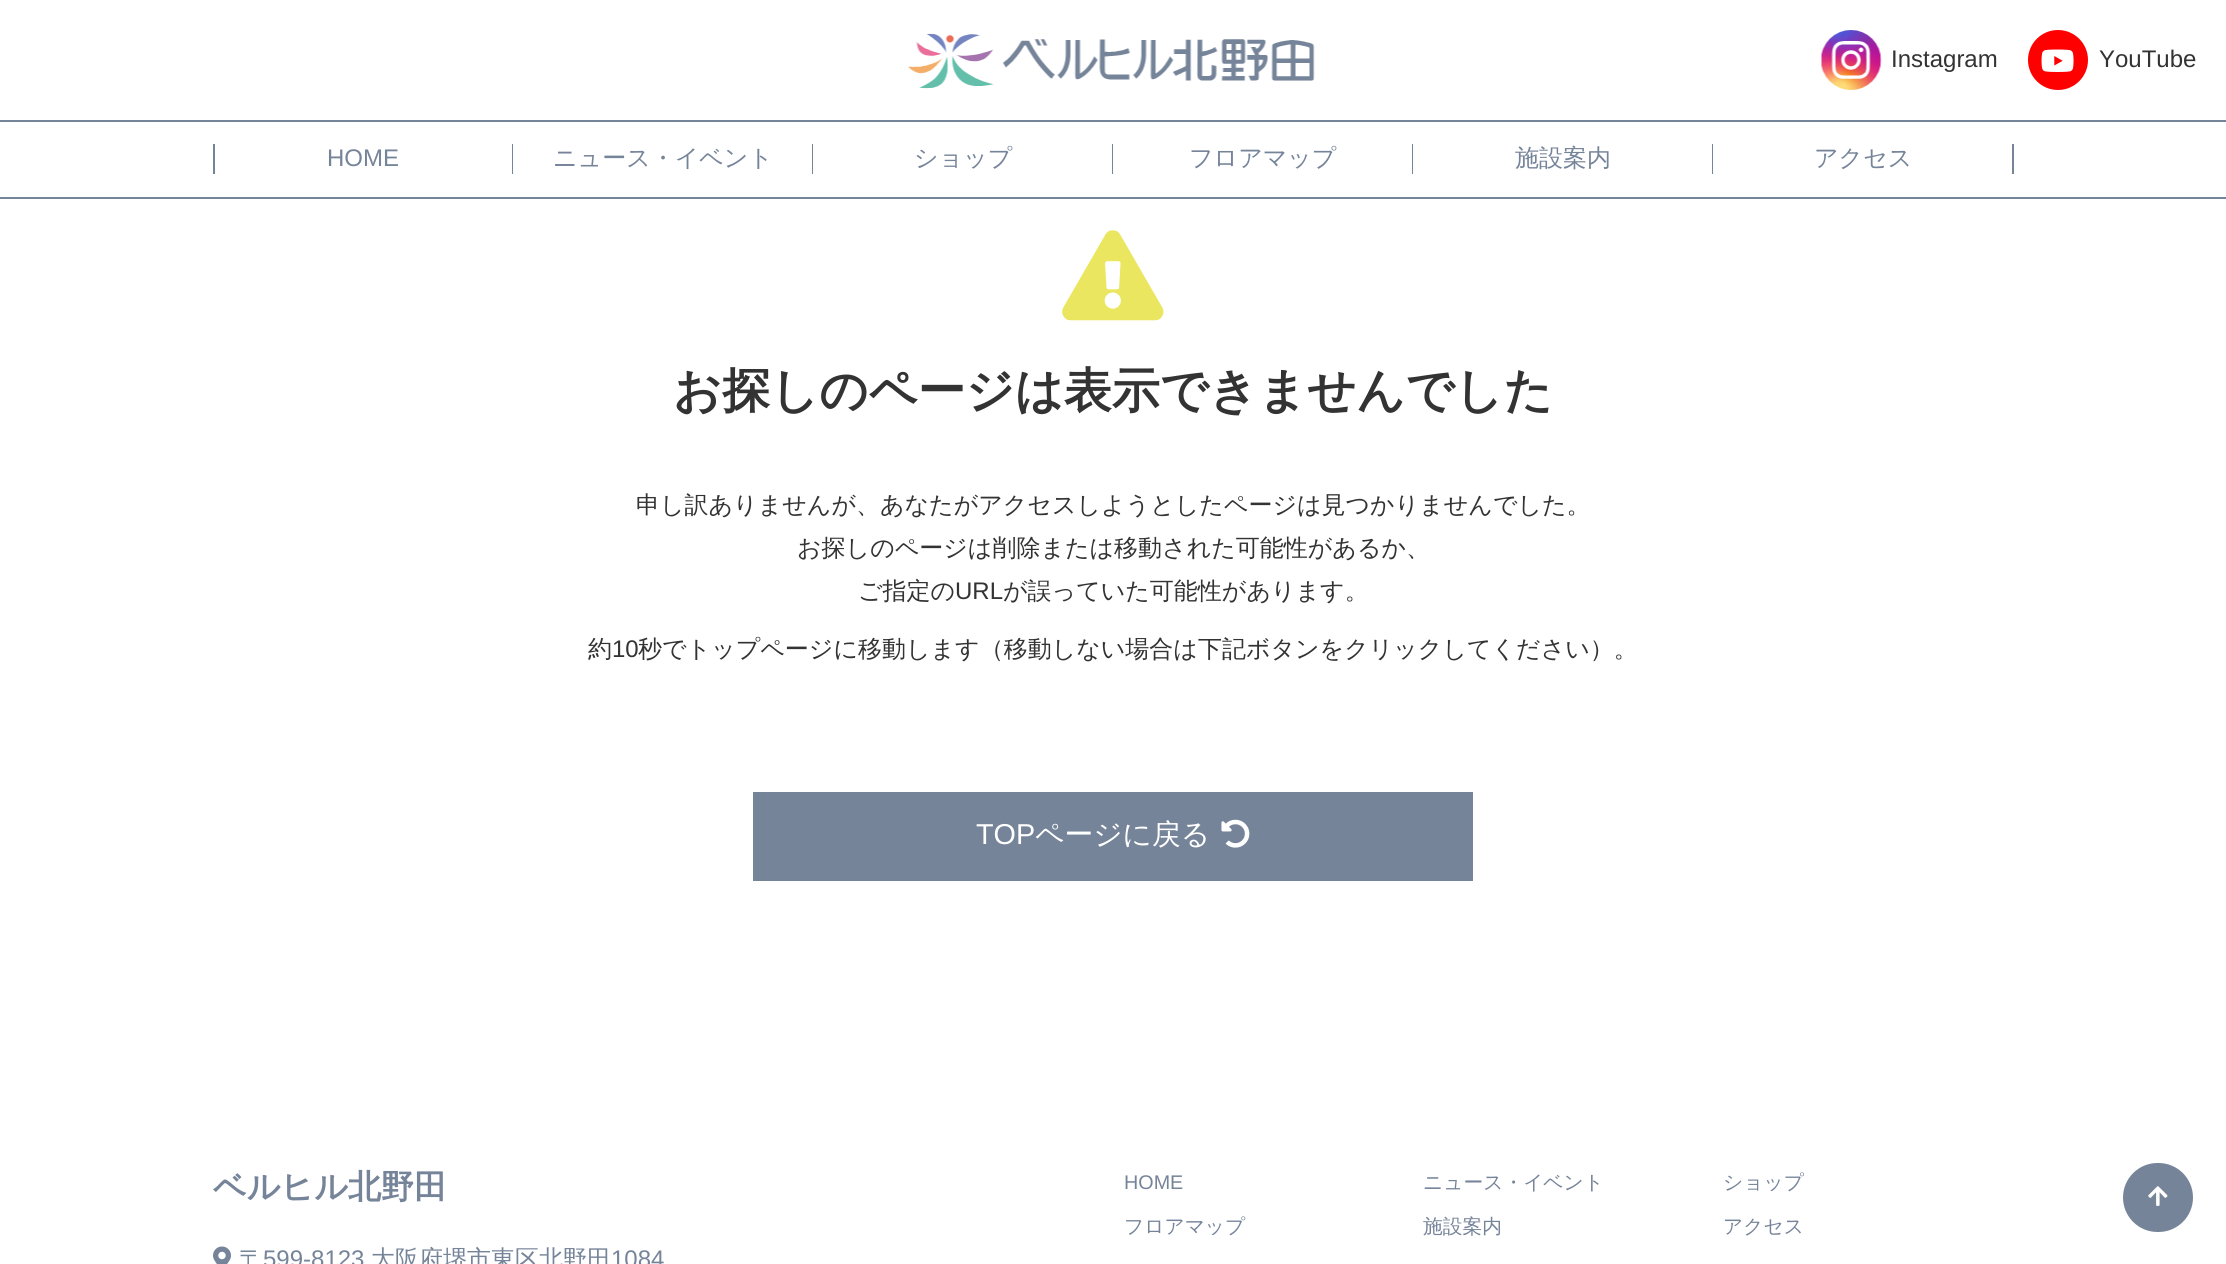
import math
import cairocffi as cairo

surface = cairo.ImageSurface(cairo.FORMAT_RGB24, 2226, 1264)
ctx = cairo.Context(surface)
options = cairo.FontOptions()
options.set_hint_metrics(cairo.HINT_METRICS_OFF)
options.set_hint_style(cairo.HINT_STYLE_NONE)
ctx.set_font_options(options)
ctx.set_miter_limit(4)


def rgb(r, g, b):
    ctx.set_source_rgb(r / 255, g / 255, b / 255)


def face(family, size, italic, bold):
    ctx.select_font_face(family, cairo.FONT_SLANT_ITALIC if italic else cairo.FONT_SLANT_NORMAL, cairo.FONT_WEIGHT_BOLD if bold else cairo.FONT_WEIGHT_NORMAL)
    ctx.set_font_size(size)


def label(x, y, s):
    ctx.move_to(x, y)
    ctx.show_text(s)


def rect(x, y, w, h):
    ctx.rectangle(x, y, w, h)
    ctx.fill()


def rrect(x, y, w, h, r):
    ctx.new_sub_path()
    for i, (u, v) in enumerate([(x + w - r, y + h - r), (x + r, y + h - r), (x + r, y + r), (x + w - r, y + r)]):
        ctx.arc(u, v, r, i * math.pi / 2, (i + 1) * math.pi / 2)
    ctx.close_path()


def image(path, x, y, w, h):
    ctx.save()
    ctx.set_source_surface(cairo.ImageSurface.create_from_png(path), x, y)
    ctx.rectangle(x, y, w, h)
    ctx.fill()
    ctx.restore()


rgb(255, 255, 255)
ctx.paint()
image('image0.png', 908, 33, 407, 56)
image('image1.png', 1821, 30, 61, 60)
face('Liberation Sans', 24, 0, 0)
rgb(51, 51, 51)
label(1891, 67, 'Instagram')
image('image2.png', 2028, 30, 60, 60)
label(2099, 67, 'YouTube')
rgb(118, 132, 153)
rect(0, 120, 2226, 2)
rect(0, 197, 2226, 2)
rect(213, 144, 2, 30)
label(327, 166, 'HOME')
rect(512, 144, 1, 30)
face('WenQuanYi Zen Hei Medium', 24, 0, 0)
label(553, 166, 'ニュース・イベント')
rect(812, 144, 1, 30)
label(914, 166, 'ショップ')
rect(1112, 144, 1, 30)
label(1189, 166, 'フロアマップ')
rect(1412, 144, 1, 30)
label(1515, 166, '施設案内')
rect(1712, 144, 1, 30)
label(1814, 166, 'アクセス')
rect(2012, 144, 2, 30)
image('image3.png', 1062, 230, 102, 91)
face('WenQuanYi Zen Hei', 48, 0, 1)
rgb(51, 51, 51)
label(673, 407, 'お探しのページは表示できませんでした')
face('WenQuanYi Zen Hei Medium', 24, 0, 0)
label(636, 513, '申し訳ありませんが、あなたがアクセスしようとしたページは見つかりませんでした。')
label(797, 556, 'お探しのページは削除または移動された可能性があるか、')
label(858, 599, 'ご指定の')
face('Liberation Sans', 24, 0, 0)
label(955, 599, 'URL')
face('WenQuanYi Zen Hei Medium', 24, 0, 0)
label(1003, 599, 'が誤っていた可能性があります。')
label(588, 657, '約')
face('Liberation Sans', 24, 0, 0)
label(612, 657, '10')
face('WenQuanYi Zen Hei Medium', 24, 0, 0)
label(638, 657, '秒でトップページに移動します（移動しない場合は下記ボタンをクリックしてください）。')
rgb(118, 132, 153)
rect(753, 792, 720, 89)
face('Liberation Sans', 28.75, 0, 0)
rgb(255, 255, 255)
label(976, 844, 'TOP')
face('WenQuanYi Zen Hei Medium', 28.75, 0, 0)
label(1035, 844, 'ページに戻る')
image('image4.png', 1221, 819, 29, 29)
face('WenQuanYi Zen Hei', 33, 0, 1)
rgb(118, 132, 153)
label(213, 1198, 'ベルヒル北野田')
image('image5.png', 213, 1246, 18, 18)
face('WenQuanYi Zen Hei Medium', 24, 0, 0)
label(239, 1267, '〒')
face('Liberation Sans', 24, 0, 0)
label(263, 1267, '599-8123')
face('WenQuanYi Zen Hei Medium', 24, 0, 0)
label(371, 1267, '大阪府堺市東区北野田')
face('Liberation Sans', 24, 0, 0)
label(611, 1267, '1084')
face('Liberation Sans', 19.75, 0, 0)
label(1124, 1189, 'HOME')
face('WenQuanYi Zen Hei Medium', 19.75, 0, 0)
label(1423, 1189, 'ニュース・イベント')
label(1723, 1189, 'ショップ')
label(1124, 1233, 'フロアマップ')
label(1423, 1233, '施設案内')
label(1723, 1233, 'アクセス')
rrect(2121.5, 1161.5, 73, 72, 36)
ctx.fill_preserve()
rgb(255, 255, 255)
ctx.set_line_width(3)
ctx.stroke()
image('image6.png', 2148, 1186, 20, 20)
surface.write_to_png('render.png')
